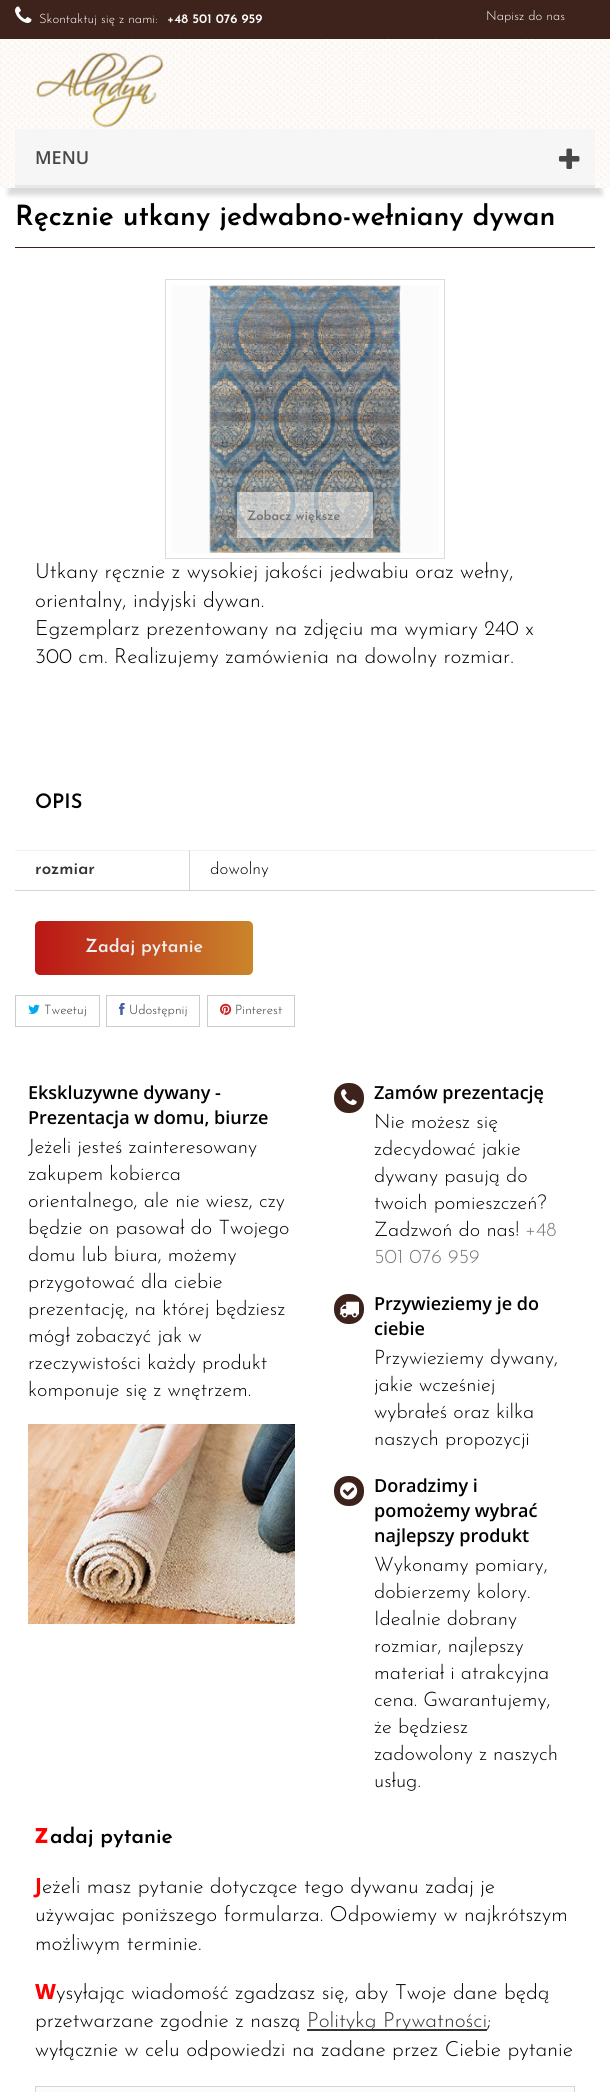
import math
import cairocffi as cairo

surface = cairo.ImageSurface(cairo.FORMAT_RGB24, 610, 2092)
ctx = cairo.Context(surface)
options = cairo.FontOptions()
options.set_hint_metrics(cairo.HINT_METRICS_OFF)
options.set_hint_style(cairo.HINT_STYLE_NONE)
ctx.set_font_options(options)
ctx.set_miter_limit(4)


def rgb(r, g, b):
    ctx.set_source_rgb(r / 255, g / 255, b / 255)


def face(family, size, italic, bold):
    ctx.select_font_face(family, cairo.FONT_SLANT_ITALIC if italic else cairo.FONT_SLANT_NORMAL, cairo.FONT_WEIGHT_BOLD if bold else cairo.FONT_WEIGHT_NORMAL)
    ctx.set_font_size(size)


def label(x, y, s):
    ctx.move_to(x, y)
    ctx.show_text(s)


def rect(x, y, w, h):
    ctx.rectangle(x, y, w, h)
    ctx.fill()


def rrect(x, y, w, h, r):
    ctx.new_sub_path()
    for i, (u, v) in enumerate([(x + w - r, y + h - r), (x + r, y + h - r), (x + r, y + r), (x + w - r, y + r)]):
        ctx.arc(u, v, r, i * math.pi / 2, (i + 1) * math.pi / 2)
    ctx.close_path()


def soft_shadow(x, y, w, h, r, blur, alpha):
    ctx.push_group_with_content(cairo.CONTENT_ALPHA)
    ctx.set_operator(cairo.OPERATOR_SOURCE)
    for i in range(15, -16, -2):
        e = blur * i / 6
        if min(w, h) + 2 * e > 0:
            ctx.set_source_rgba(0, 0, 0, alpha * math.erfc((i - 1) / 8.5) / 2)
            rrect(x - e, y - e, w + 2 * e, h + 2 * e, max(0, min(r + e + blur * .6, min(w, h) / 2 + e)))
            ctx.fill()
    ctx.mask(ctx.pop_group())


def image(path, x, y, w, h):
    ctx.save()
    ctx.set_source_surface(cairo.ImageSurface.create_from_png(path), x, y)
    ctx.rectangle(x, y, w, h)
    ctx.fill()
    ctx.restore()


rgb(255, 255, 255)
ctx.paint()
rgb(0, 0, 0)
soft_shadow(8, 23, 594, 172, 0, 2.5, 0.15)
image('image0.png', 0, 39, 610, 149)
rgb(61, 35, 28)
rect(0, 0, 610, 39)
image('image1.png', 15, 6, 17, 17)
face('Josefin Sans Light', 13, 0, 0)
rgb(255, 255, 255)
label(39, 23, 'Skontaktuj się z nami:')
face('Josefin Sans SemiBold', 13, 0, 0)
label(167, 23, '+48 501 076 959')
face('Josefin Sans Light', 13, 0, 0)
label(486, 20, 'Napisz do nas')
image('image2.png', 36, 52, 128, 76)
rgb(246, 246, 246)
rect(15, 129, 580, 56)
rgb(233, 233, 233)
rect(15, 185, 580, 3)
face('Open Sans SemiBold', 18, 0, 0)
rgb(72, 72, 72)
label(35, 164, 'MENU')
image('image3.png', 559, 148, 21, 21)
face('Josefin Sans SemiBold', 28, 0, 0)
rgb(0, 0, 0)
label(15, 225, 'Ręcznie utkany jedwabno-wełniany dywan')
rgb(61, 35, 28)
rect(15, 247, 580, 1)
ctx.rectangle(165.5, 279.5, 279, 279)
rgb(219, 219, 219)
ctx.set_line_width(1)
ctx.stroke()
rgb(251, 251, 251)
rect(171, 285, 268, 268)
image('image4.png', 207, 285, 195, 268)
ctx.save()
ctx.set_fill_rule(cairo.FILL_RULE_EVEN_ODD)
ctx.new_path()
ctx.move_to(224, 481)
ctx.line_to(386, 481)
ctx.line_to(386, 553)
ctx.line_to(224, 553)
ctx.close_path()
ctx.move_to(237, 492)
ctx.line_to(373, 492)
ctx.line_to(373, 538)
ctx.line_to(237, 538)
ctx.close_path()
ctx.clip()
rgb(0, 0, 0)
soft_shadow(237, 494, 136, 46, 0, 4, 0.16)
ctx.restore()
ctx.set_source_rgba(1, 1, 1, 0.5)
rect(237, 492, 136, 46)
face('Josefin Sans SemiBold', 13, 0, 0)
rgb(119, 118, 118)
label(247, 520, 'Zobacz większe')
image('image5.png', 344, 504, 18, 19)
face('Josefin Sans Light', 21, 0, 0)
rgb(0, 0, 0)
label(35, 578, 'Utkany ręcznie z wysokiej jakości jedwabiu oraz wełny,')
label(35, 607, 'orientalny, indyjski dywan.')
label(35, 635, 'Egzemplarz prezentowany na zdjęciu ma wymiary 240 x')
label(35, 663, '300 cm. Realizujemy zamówienia na dowolny rozmiar.')
face('Josefin Sans SemiBold', 20, 0, 0)
label(35, 808, 'OPIS')
rgb(214, 212, 212)
rect(15, 890, 580, 1)
rgb(241, 241, 241)
rect(15, 850, 581, 1)
rgb(214, 212, 212)
rect(189, 850, 1, 41)
face('Josefin Sans SemiBold', 17, 0, 0)
rgb(51, 51, 51)
label(35, 874, 'rozmiar')
face('Josefin Sans Light', 17, 0, 0)
rgb(0, 0, 0)
label(210, 874, 'dowolny')
gradient = cairo.LinearGradient(35, 948, 471, 948)
gradient.add_color_stop_rgba(0, 0.733, 0.086, 0.086, 1)
gradient.add_color_stop_rgba(0.51, 0.792, 0.533, 0.169, 1)
gradient.add_color_stop_rgba(1, 0.659, 0.373, 0, 1)
ctx.set_source(gradient)
rrect(35, 921, 218, 54, 5)
ctx.fill()
face('Josefin Sans SemiBold', 18, 0, 0)
rgb(238, 238, 238)
label(85, 952, 'Zadaj pytanie')
ctx.rectangle(15.5, 995.5, 84, 31)
rgb(204, 204, 204)
ctx.stroke()
image('image6.png', 28, 1004, 12, 10)
face('Josefin Sans Light', 13, 0, 0)
rgb(51, 51, 51)
label(44, 1014, 'Tweetuj')
ctx.rectangle(106.5, 995.5, 93, 31)
rgb(204, 204, 204)
ctx.stroke()
image('image7.png', 119, 1003, 6, 12)
rgb(51, 51, 51)
label(129, 1014, 'Udostępnij')
ctx.rectangle(207.5, 995.5, 87, 31)
rgb(204, 204, 204)
ctx.stroke()
image('image8.png', 220, 1003, 12, 12)
rgb(51, 51, 51)
label(235, 1014, 'Pinterest')
face('Open Sans SemiBold', 18, 0, 0)
rgb(0, 0, 0)
label(28, 1099, 'Ekskluzywne dywany -')
label(28, 1124, 'Prezentacja w domu, biurze')
face('Josefin Sans Light', 20, 0, 0)
label(28, 1153, 'Jeżeli jesteś zainteresowany')
label(28, 1180, 'zakupem kobierca')
label(28, 1207, 'orientalnego, ale nie wiesz, czy')
label(28, 1234, 'będzie on pasował do Twojego')
label(28, 1261, 'domu lub biura, możemy')
label(28, 1288, 'przygotować dla ciebie')
label(28, 1315, 'prezentację, na której będziesz')
label(28, 1342, 'mógł zobaczyć jak w')
label(28, 1369, 'rzeczywistości każdy produkt')
label(28, 1396, 'komponuje się z wnętrzem.')
image('image9.png', 28, 1424, 267, 200)
rgb(61, 35, 28)
rrect(334, 1083, 30, 30, 14)
ctx.fill()
image('image10.png', 341, 1089, 16, 16)
face('Open Sans SemiBold', 18, 0, 0)
rgb(0, 0, 0)
label(374, 1099, 'Zamów prezentację')
face('Josefin Sans Light', 20, 0, 0)
label(374, 1128, 'Nie możesz się')
label(374, 1155, 'zdecydować jakie')
label(374, 1182, 'dywany pasują do')
label(374, 1209, 'twoich pomieszczeń?')
label(374, 1236, 'Zadzwoń do nas!')
rgb(119, 118, 118)
label(525, 1236, '+48')
label(374, 1263, '501 076 959')
rgb(61, 35, 28)
rrect(334, 1294, 30, 30, 14)
ctx.fill()
image('image11.png', 339, 1301, 20, 17)
face('Open Sans SemiBold', 18, 0, 0)
rgb(0, 0, 0)
label(374, 1310, 'Przywieziemy je do')
label(374, 1335, 'ciebie')
face('Josefin Sans Light', 20, 0, 0)
label(374, 1364, 'Przywieziemy dywany,')
label(374, 1391, 'jakie wcześniej')
label(374, 1418, 'wybrałeś oraz kilka')
label(374, 1445, 'naszych propozycji')
rgb(61, 35, 28)
rrect(334, 1476, 30, 30, 14)
ctx.fill()
image('image12.png', 340, 1482, 18, 18)
face('Open Sans SemiBold', 18, 0, 0)
rgb(0, 0, 0)
label(374, 1492, 'Doradzimy i')
label(374, 1517, 'pomożemy wybrać')
label(374, 1542, 'najlepszy produkt')
face('Josefin Sans Light', 20, 0, 0)
label(374, 1571, 'Wykonamy pomiary,')
label(374, 1598, 'dobierzemy kolory.')
label(374, 1625, 'Idealnie dobrany')
label(374, 1652, 'rozmiar, najlepszy')
label(374, 1679, 'materiał i atrakcyjna')
label(374, 1706, 'cena. Gwarantujemy,')
label(374, 1733, 'że będziesz')
label(374, 1760, 'zadowolony z naszych')
label(374, 1787, 'usług.')
face('Noto Sans Black', 21, 0, 0)
rgb(255, 0, 0)
label(35, 1843, 'Z')
face('Josefin Sans SemiBold', 21, 0, 0)
rgb(0, 0, 0)
label(50, 1843, 'adaj pytanie')
face('Noto Sans', 21, 0, 1)
rgb(255, 0, 0)
label(35, 1893, 'J')
face('Josefin Sans Light', 21, 0, 0)
rgb(0, 0, 0)
label(42, 1893, 'eżeli masz pytanie dotyczące tego dywanu zadaj je')
label(35, 1921, 'używajac poniższego formularza. Odpowiemy w najkrótszym')
label(35, 1950, 'możliwym terminie.')
face('Noto Sans ExtraBold', 21, 0, 0)
rgb(255, 0, 0)
label(35, 1999, 'W')
face('Josefin Sans Light', 21, 0, 0)
rgb(0, 0, 0)
label(56, 1999, 'ysyłając wiadomość zgadzasz się, aby Twoje dane będą')
label(35, 2027, 'przetwarzane zgodnie z naszą')
rgb(51, 51, 51)
rect(307, 2029, 180, 2)
label(307, 2027, 'Polityką Prywatności')
rgb(0, 0, 0)
label(487, 2027, ';')
label(35, 2056, 'wyłącznie w celu odpowiedzi na zadane przez Ciebie pytanie')
rgb(251, 251, 251)
ctx.rectangle(35.5, 2086.5, 539, 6)
ctx.fill_preserve()
rgb(214, 212, 212)
ctx.stroke()
surface.write_to_png('render.png')
